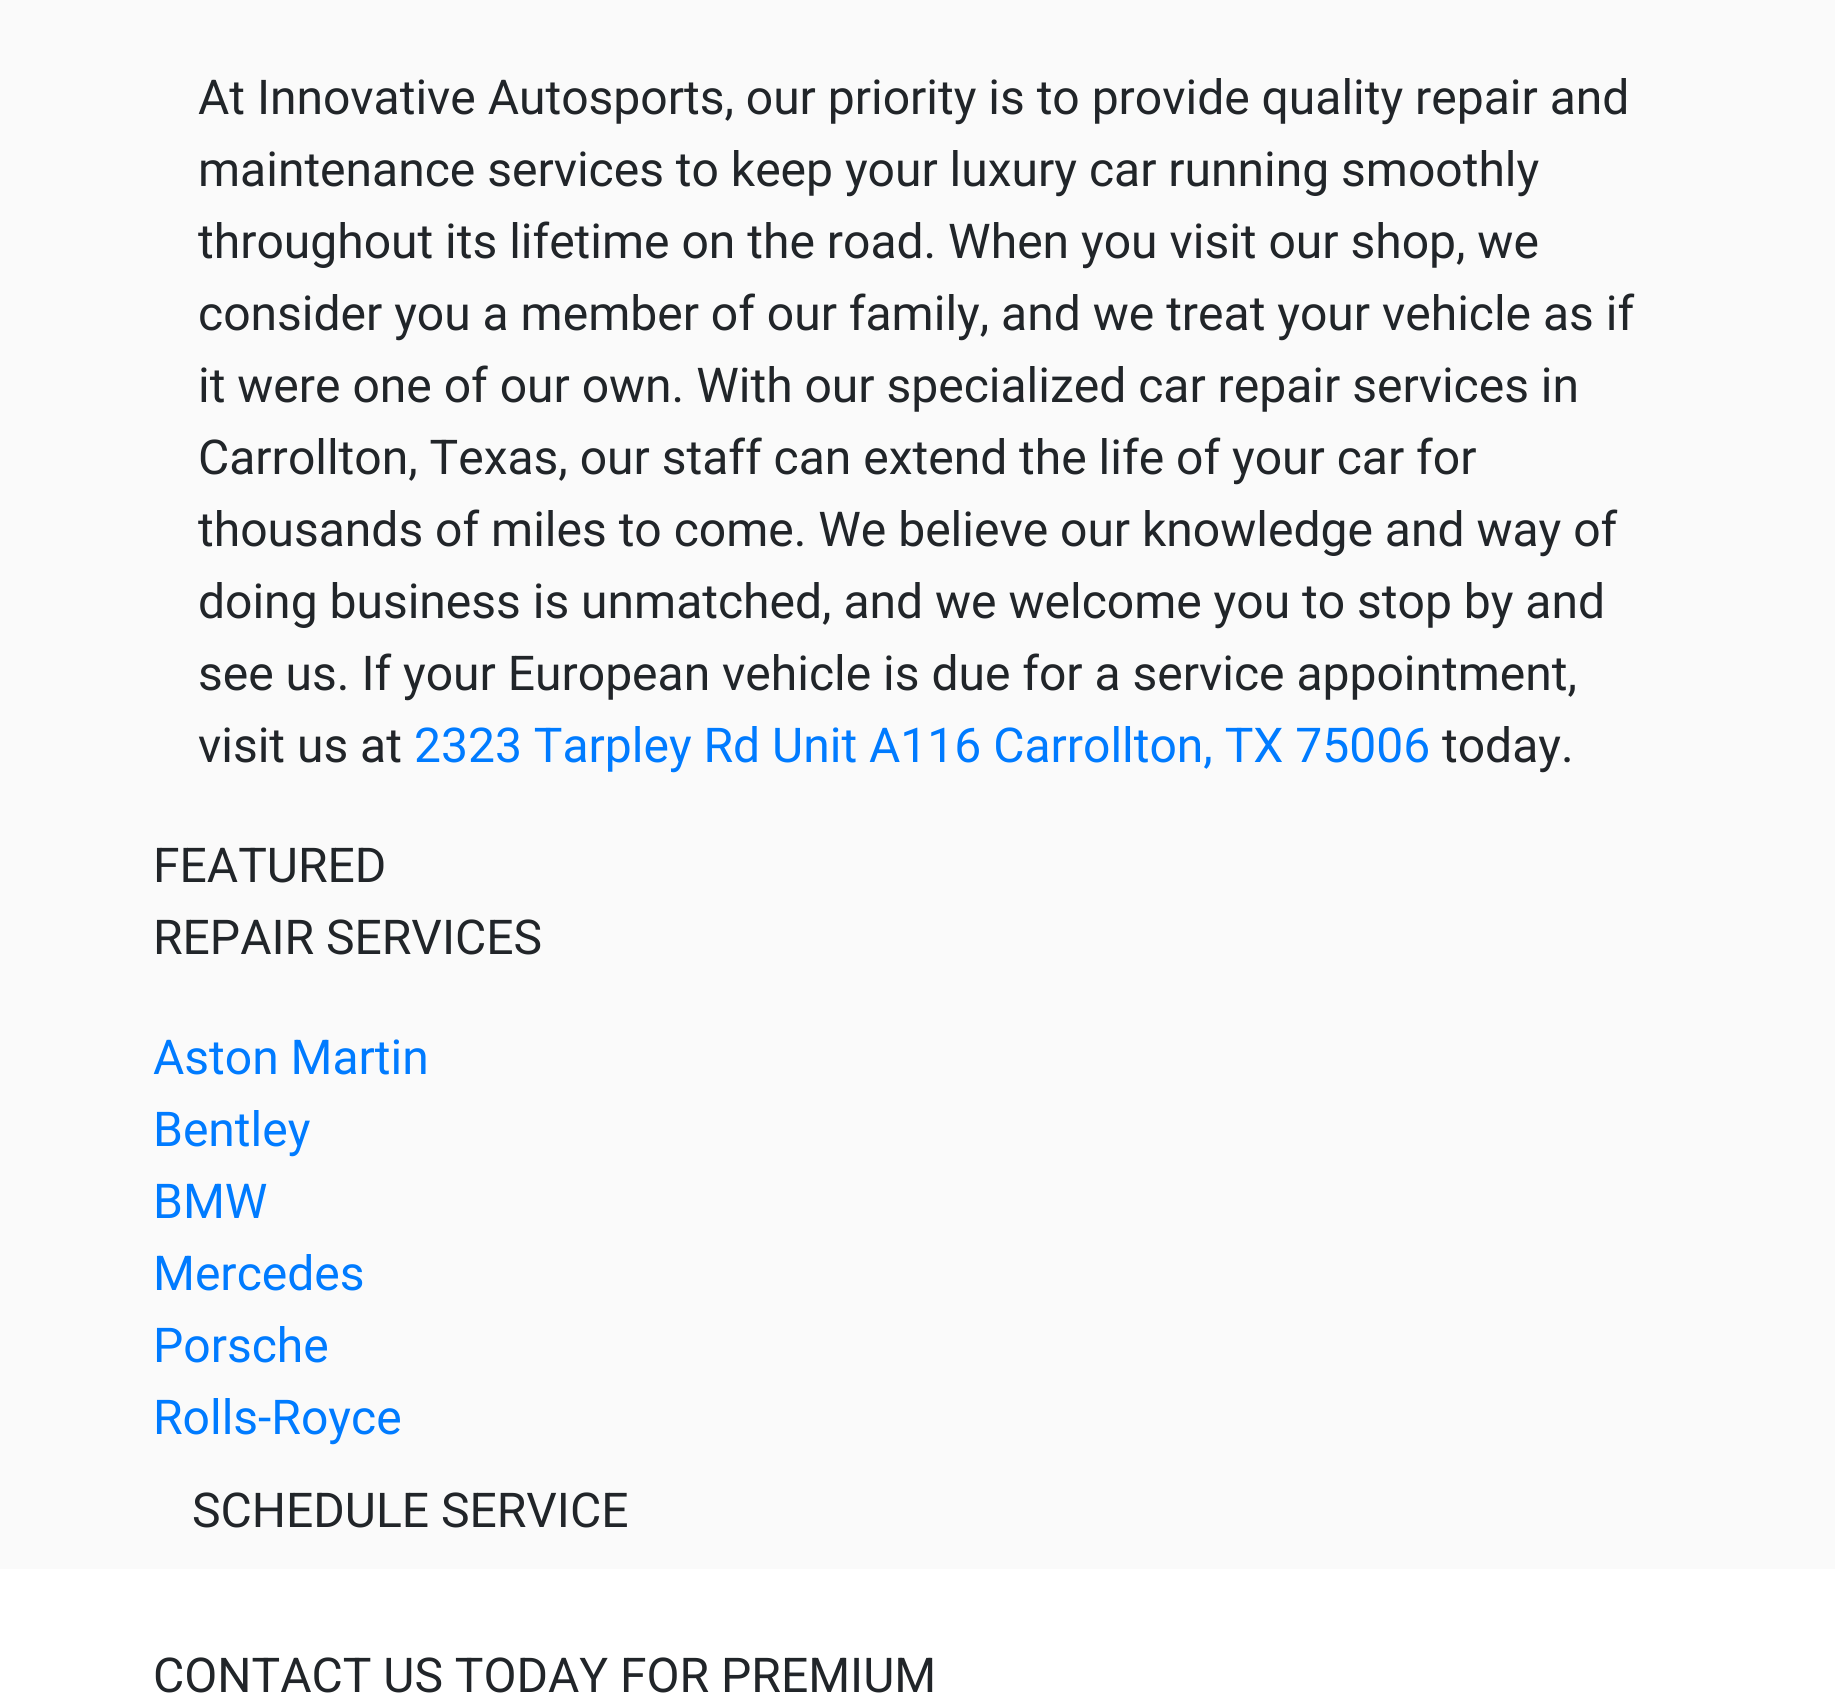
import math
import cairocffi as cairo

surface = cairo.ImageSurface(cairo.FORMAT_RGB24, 1835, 1697)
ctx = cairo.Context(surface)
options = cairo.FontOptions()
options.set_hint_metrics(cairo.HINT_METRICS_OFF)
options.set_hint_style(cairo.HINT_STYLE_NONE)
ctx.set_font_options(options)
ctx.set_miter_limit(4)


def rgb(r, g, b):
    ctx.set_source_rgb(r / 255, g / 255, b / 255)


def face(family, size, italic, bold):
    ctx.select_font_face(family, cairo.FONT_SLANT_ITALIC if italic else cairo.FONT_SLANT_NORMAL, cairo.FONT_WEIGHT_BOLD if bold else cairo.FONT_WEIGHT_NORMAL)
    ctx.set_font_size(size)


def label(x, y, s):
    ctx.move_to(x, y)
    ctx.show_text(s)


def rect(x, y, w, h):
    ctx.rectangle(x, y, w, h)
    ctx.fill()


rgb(255, 255, 255)
ctx.paint()
rgb(250, 250, 250)
rect(0, 0, 1835, 1569)
face('Roboto', 48, 0, 0)
rgb(33, 37, 41)
label(198, 114, 'At Innovative Autosports, our priority is to provide quality repair and')
label(198, 186, 'maintenance services to keep your luxury car running smoothly')
label(198, 258, 'throughout its lifetime on the road. When you visit our shop, we')
label(198, 330, 'consider you a member of our family, and we treat your vehicle as if')
label(198, 402, 'it were one of our own. With our specialized car repair services in')
label(198, 474, 'Carrollton, Texas, our staff can extend the life of your car for')
label(198, 546, 'thousands of miles to come. We believe our knowledge and way of')
label(198, 618, 'doing business is unmatched, and we welcome you to stop by and')
label(198, 690, 'see us. If your European vehicle is due for a service appointment,')
label(198, 762, 'visit us at')
rgb(0, 123, 255)
label(414, 762, '2323 Tarpley Rd Unit A116 Carrollton, TX 75006')
rgb(33, 37, 41)
label(1442, 762, 'today.')
label(153, 882, 'FEATURED')
label(153, 954, 'REPAIR SERVICES')
rgb(0, 123, 255)
label(153, 1074, 'Aston Martin')
label(153, 1146, 'Bentley')
label(153, 1218, 'BMW')
label(153, 1290, 'Mercedes')
label(153, 1362, 'Porsche')
label(153, 1434, 'Rolls-Royce')
rgb(33, 37, 41)
label(192, 1527, 'SCHEDULE SERVICE')
label(153, 1692, 'CONTACT US TODAY FOR PREMIUM')
surface.write_to_png('render.png')
